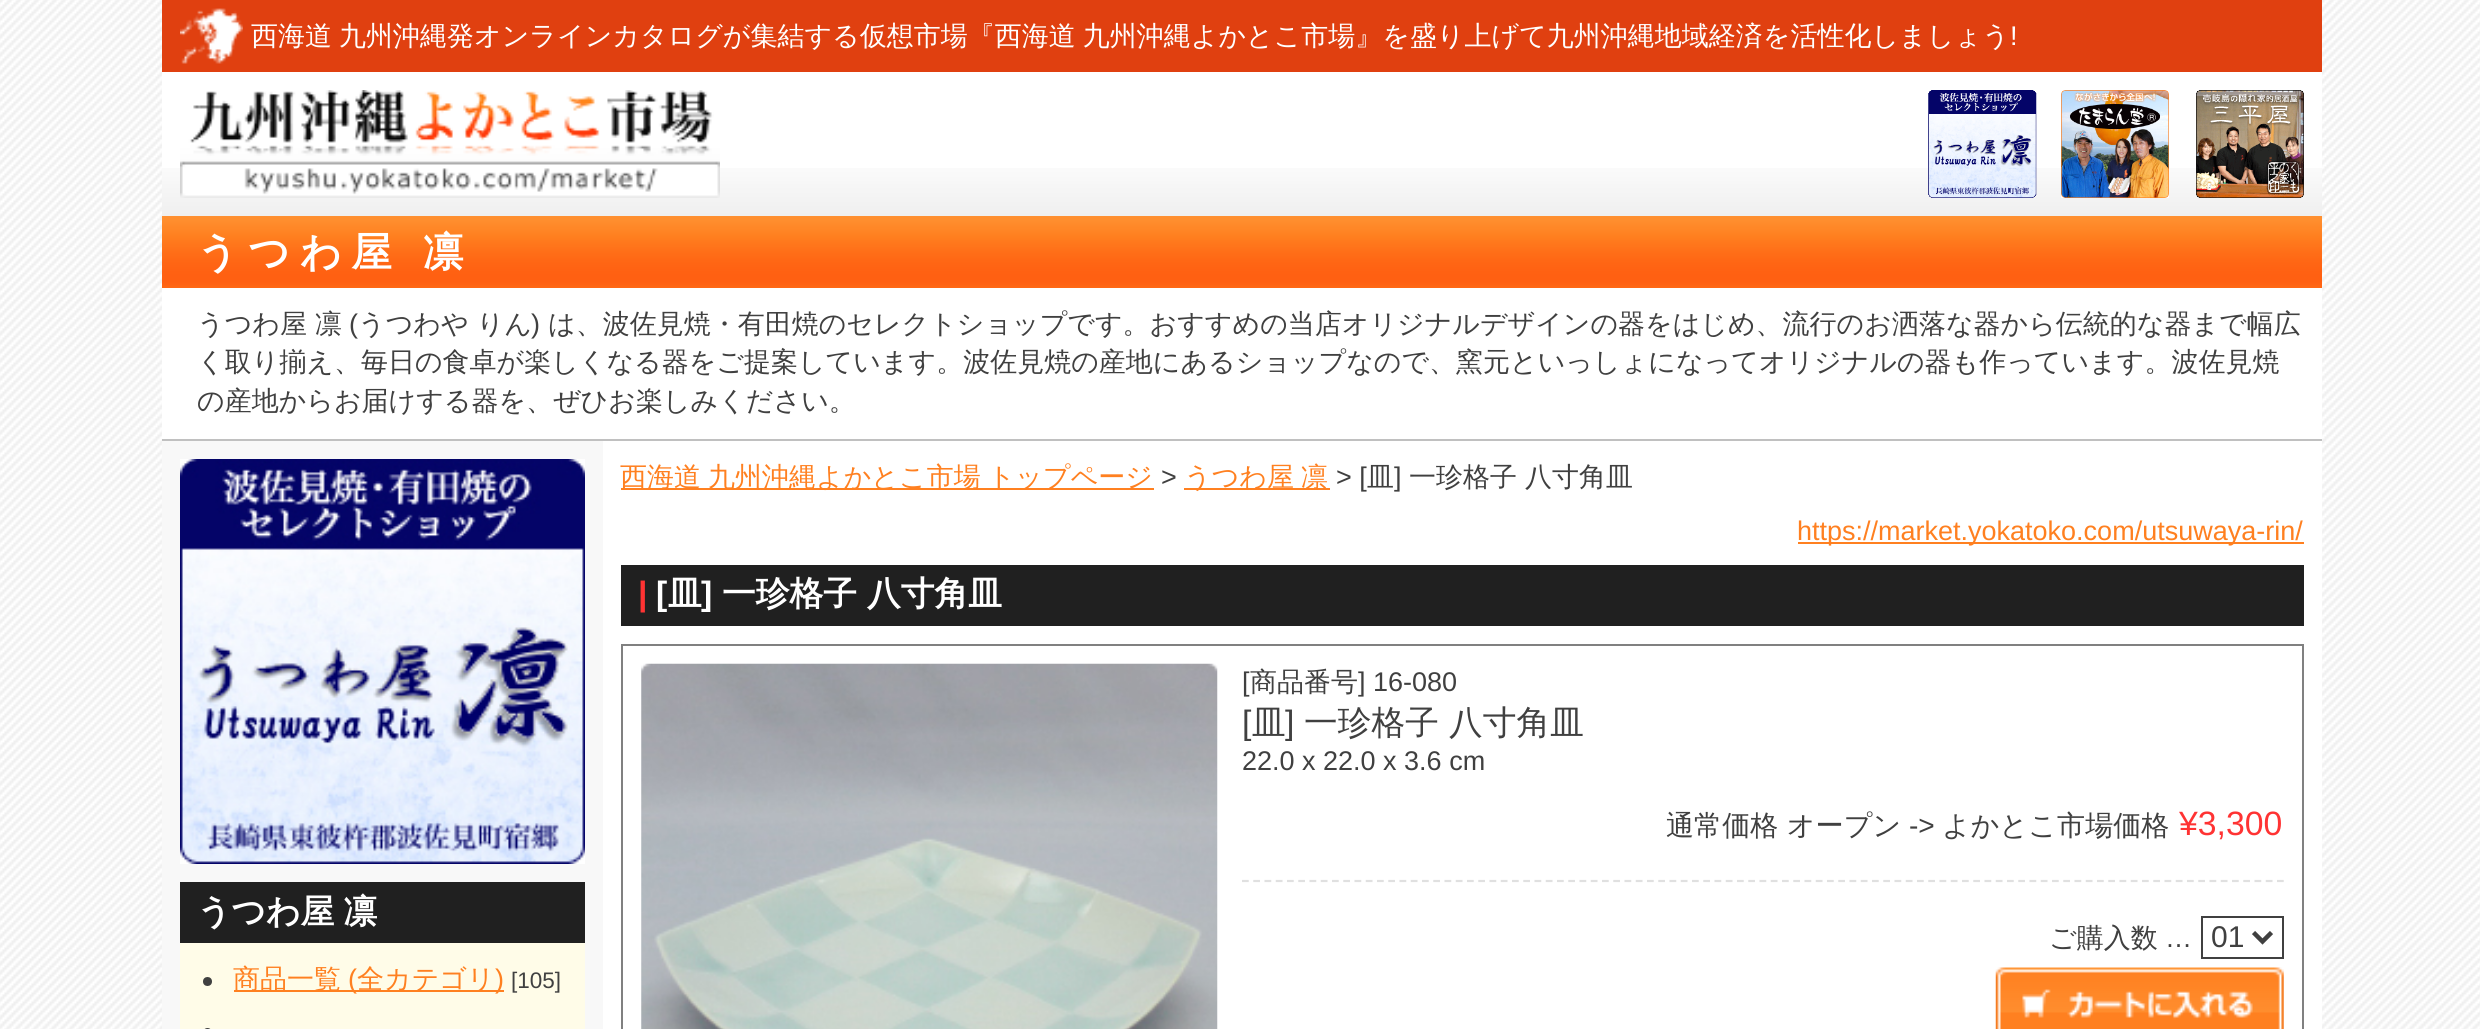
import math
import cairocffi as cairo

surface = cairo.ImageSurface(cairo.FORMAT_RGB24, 2480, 1029)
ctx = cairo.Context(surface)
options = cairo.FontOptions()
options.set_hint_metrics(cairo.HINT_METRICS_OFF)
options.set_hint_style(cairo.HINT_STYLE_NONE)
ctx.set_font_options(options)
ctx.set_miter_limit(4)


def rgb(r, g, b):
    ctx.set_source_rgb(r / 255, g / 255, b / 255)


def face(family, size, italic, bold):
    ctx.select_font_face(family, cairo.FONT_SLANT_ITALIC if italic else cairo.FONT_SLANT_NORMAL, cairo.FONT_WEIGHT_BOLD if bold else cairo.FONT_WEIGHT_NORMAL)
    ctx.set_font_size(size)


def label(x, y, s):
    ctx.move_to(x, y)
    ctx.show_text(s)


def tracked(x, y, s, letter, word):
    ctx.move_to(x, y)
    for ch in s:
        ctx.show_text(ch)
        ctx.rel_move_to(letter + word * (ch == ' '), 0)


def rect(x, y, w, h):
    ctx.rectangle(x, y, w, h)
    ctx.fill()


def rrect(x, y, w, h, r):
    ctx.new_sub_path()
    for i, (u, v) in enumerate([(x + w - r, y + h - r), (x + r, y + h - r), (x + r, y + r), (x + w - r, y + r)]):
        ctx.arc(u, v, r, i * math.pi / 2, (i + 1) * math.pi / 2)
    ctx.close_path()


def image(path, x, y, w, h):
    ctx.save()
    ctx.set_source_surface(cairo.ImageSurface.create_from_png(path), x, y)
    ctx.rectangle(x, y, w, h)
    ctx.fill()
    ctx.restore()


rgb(255, 255, 255)
ctx.paint()
image('image0.png', 0, 0, 2480, 1029)
rgb(255, 255, 255)
rect(162, 72, 2160, 957)
rgb(224, 64, 16)
rect(162, 0, 2160, 72)
image('image1.png', 180, 8, 63, 56)
face('WenQuanYi Zen Hei Medium', 27, 0, 0)
rgb(255, 255, 255)
tracked(251, 45, '西海道 九州沖縄発オンラインカタログが集結する仮想市場『西海道 九州沖縄よかとこ市場』を盛り上げて九州沖縄地域経済を活性化しましょう', 0, -1)
face('Liberation Sans', 27, 0, 0)
label(2010, 45, '!')
image('image2.png', 162, 168, 2160, 48)
image('image3.png', 180, 90, 540, 108)
image('image4.png', 1928, 90, 109, 108)
image('image5.png', 2061, 90, 108, 108)
image('image6.png', 2196, 90, 108, 108)
image('image7.png', 162, 216, 2160, 72)
face('WenQuanYi Zen Hei', 40.5, 0, 1)
tracked(197, 266, 'うつわ屋 凛', 10, -1)
face('WenQuanYi Zen Hei Medium', 27, 0, 0)
rgb(64, 64, 64)
label(197, 333, 'うつわ屋 凛')
face('Liberation Sans', 27, 0, 0)
label(349, 333, '(')
face('WenQuanYi Zen Hei Medium', 27, 0, 0)
label(358, 333, 'うつわや りん')
face('Liberation Sans', 27, 0, 0)
label(531, 333, ')')
face('WenQuanYi Zen Hei Medium', 27, 0, 0)
label(548, 333, 'は、波佐見焼・有田焼のセレクトショップです。おすすめの当店オリジナルデザインの器をはじめ、流行のお洒落な器から伝統的な器まで幅広')
label(197, 371, 'く取り揃え、毎日の食卓が楽しくなる器をご提案しています。波佐見焼の産地にあるショップなので、窯元といっしょになってオリジナルの器も作っています。波佐見焼')
label(197, 410, 'の産地からお届けする器を、ぜひお楽しみください。')
rgb(192, 192, 192)
rect(162, 439, 2160, 2)
rgb(248, 248, 248)
rect(162, 441, 441, 588)
image('image8.png', 180, 459, 405, 405)
rgb(32, 32, 32)
rect(180, 882, 405, 61)
face('WenQuanYi Zen Hei', 33.75, 0, 1)
rgb(255, 255, 255)
tracked(197, 923, 'うつわ屋 凛', 0, -1)
rgb(255, 252, 232)
rect(180, 943, 405, 86)
rgb(64, 64, 64)
ctx.new_path()
ctx.arc(207.5, 981.5, 4.5, 0, 2 * math.pi)
ctx.fill()
rgb(255, 128, 32)
rect(234, 990, 270, 2)
face('WenQuanYi Zen Hei Medium', 27, 0, 0)
label(233, 988, '商品一覧')
face('Liberation Sans', 27, 0, 0)
label(348, 988, '(')
face('WenQuanYi Zen Hei Medium', 27, 0, 0)
label(357, 988, '全カテゴリ')
face('Liberation Sans', 27, 0, 0)
label(495, 988, ')')
face('Liberation Sans', 22.5, 0, 0)
rgb(64, 64, 64)
label(511, 988, '[105]')
rrect(203, 1028, 9, 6, 4.5)
ctx.fill()
rgb(255, 128, 32)
rect(621, 488, 533, 2)
face('WenQuanYi Zen Hei Medium', 27, 0, 0)
tracked(620, 486, '西海道 九州沖縄よかとこ市場 トップページ', 0, -1)
face('Liberation Sans', 27, 0, 0)
rgb(64, 64, 64)
label(1161, 486, '>')
rgb(255, 128, 32)
rect(1184, 488, 146, 2)
face('WenQuanYi Zen Hei Medium', 27, 0, 0)
tracked(1184, 486, 'うつわ屋 凛', 0, -1)
face('Liberation Sans', 27, 0, 0)
rgb(64, 64, 64)
label(1336, 486, '> [')
face('WenQuanYi Zen Hei Medium', 27, 0, 0)
label(1367, 486, '皿')
face('Liberation Sans', 27, 0, 0)
label(1394, 486, ']')
face('WenQuanYi Zen Hei Medium', 27, 0, 0)
label(1409, 486, '一珍格子')
label(1525, 486, '八寸角皿')
rgb(255, 128, 32)
rect(1798, 542, 506, 2)
face('Liberation Sans', 27, 0, 0)
label(1797, 540, 'https://market.yokatoko.com/utsuwaya-rin/')
rgb(32, 32, 32)
rect(621, 565, 1683, 61)
face('Liberation Sans', 33.75, 0, 1)
rgb(255, 51, 51)
label(638, 605, '|')
rgb(255, 255, 255)
label(656, 605, '[')
face('WenQuanYi Zen Hei', 33.75, 0, 1)
label(668, 605, '皿')
face('Liberation Sans', 33.75, 0, 1)
label(701, 605, ']')
face('WenQuanYi Zen Hei', 33.75, 0, 1)
label(722, 605, '一珍格子 八寸角皿')
ctx.rectangle(622, 645, 1681, 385)
rgb(128, 128, 128)
ctx.stroke()
image('image9.png', 641, 663, 577, 366)
face('Liberation Sans', 27, 0, 0)
rgb(64, 64, 64)
label(1242, 691, '[')
face('WenQuanYi Zen Hei Medium', 27, 0, 0)
label(1250, 691, '商品番号')
face('Liberation Sans', 27, 0, 0)
label(1358, 691, '] 16-080')
face('Liberation Sans', 33.75, 0, 0)
label(1242, 734, '[')
face('WenQuanYi Zen Hei Medium', 33.75, 0, 0)
label(1252, 734, '皿')
face('Liberation Sans', 33.75, 0, 0)
label(1285, 734, ']')
face('WenQuanYi Zen Hei Medium', 33.75, 0, 0)
label(1304, 734, '一珍格子 八寸角皿')
face('Liberation Sans', 27, 0, 0)
label(1242, 770, '22.0 x 22.0 x 3.6 cm')
ctx.new_path()
ctx.move_to(1242, 881)
ctx.line_to(2284, 881)
rgb(224, 224, 224)
ctx.set_line_width(2.2)
ctx.set_dash([6.75, 4.5])
ctx.stroke()
face('WenQuanYi Zen Hei Medium', 28.1, 0, 0)
rgb(64, 64, 64)
label(1666, 835, '通常価格 オープン')
face('Liberation Sans', 28.1, 0, 0)
label(1909, 835, '->')
face('WenQuanYi Zen Hei Medium', 28.1, 0, 0)
label(1942, 835, 'よかとこ市場価格')
face('Liberation Sans', 33.75, 0, 0)
rgb(255, 51, 51)
label(2179, 835, '¥3,300')
face('WenQuanYi Zen Hei Medium', 27, 0, 0)
rgb(64, 64, 64)
label(2049, 947, 'ご購入数')
face('Liberation Sans', 27, 0, 0)
label(2165, 947, '…')
ctx.rectangle(2202, 917, 81, 41)
ctx.set_line_width(2)
ctx.set_dash([])
ctx.stroke()
ctx.new_path()
ctx.move_to(2253.5, 932.5)
ctx.line_to(2262.5, 941.5)
ctx.line_to(2271.5, 932.5)
ctx.set_line_width(4.5)
ctx.stroke()
ctx.save()
ctx.rectangle(2212, 918, 34, 38)
ctx.clip()
face('Liberation Sans', 30, 0, 0)
label(2211, 947, '01')
ctx.restore()
image('image10.png', 1995, 967, 289, 62)
surface.write_to_png('render.png')
